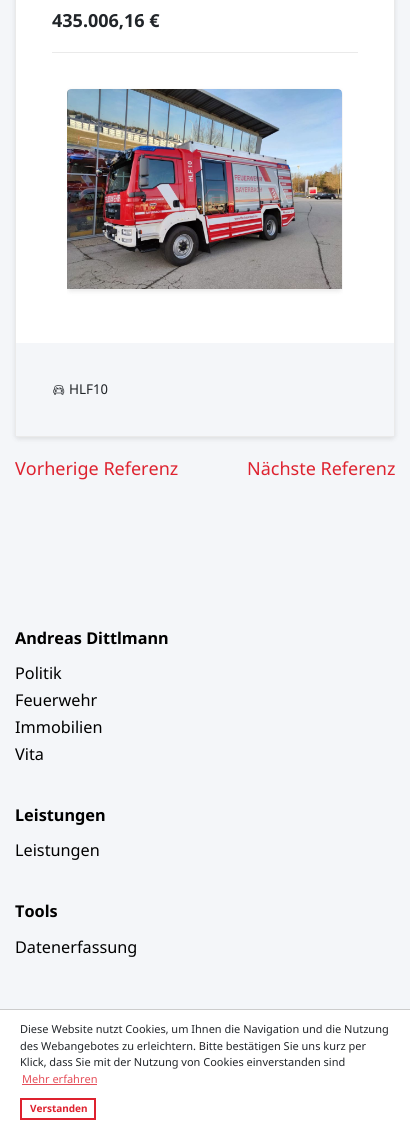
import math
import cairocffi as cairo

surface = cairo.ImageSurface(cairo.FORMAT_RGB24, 410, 1131)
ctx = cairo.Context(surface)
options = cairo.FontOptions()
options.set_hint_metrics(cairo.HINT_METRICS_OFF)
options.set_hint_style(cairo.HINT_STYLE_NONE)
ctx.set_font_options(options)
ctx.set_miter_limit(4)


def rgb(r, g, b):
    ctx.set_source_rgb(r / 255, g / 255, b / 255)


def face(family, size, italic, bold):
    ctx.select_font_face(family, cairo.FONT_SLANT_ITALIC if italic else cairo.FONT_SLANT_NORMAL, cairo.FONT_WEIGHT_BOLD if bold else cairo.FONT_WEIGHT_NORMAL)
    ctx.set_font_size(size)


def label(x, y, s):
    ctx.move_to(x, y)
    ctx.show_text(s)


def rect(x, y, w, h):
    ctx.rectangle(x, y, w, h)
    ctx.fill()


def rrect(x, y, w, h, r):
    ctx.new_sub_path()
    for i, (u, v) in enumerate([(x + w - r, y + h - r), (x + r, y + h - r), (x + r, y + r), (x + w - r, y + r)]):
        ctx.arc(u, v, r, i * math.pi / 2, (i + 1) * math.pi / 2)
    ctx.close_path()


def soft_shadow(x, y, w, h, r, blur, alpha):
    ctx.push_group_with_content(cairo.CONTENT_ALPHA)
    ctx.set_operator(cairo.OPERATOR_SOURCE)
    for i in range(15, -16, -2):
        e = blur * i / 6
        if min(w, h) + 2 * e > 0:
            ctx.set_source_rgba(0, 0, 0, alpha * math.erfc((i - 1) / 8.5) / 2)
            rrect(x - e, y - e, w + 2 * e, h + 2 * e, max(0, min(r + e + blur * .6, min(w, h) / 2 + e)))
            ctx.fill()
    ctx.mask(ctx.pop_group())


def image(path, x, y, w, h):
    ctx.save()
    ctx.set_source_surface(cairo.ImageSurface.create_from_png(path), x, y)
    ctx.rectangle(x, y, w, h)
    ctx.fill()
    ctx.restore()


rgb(244, 246, 249)
ctx.paint()
rgb(0, 0, 0)
soft_shadow(15, -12, 380, 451, 4, 2.5, 0.1)
rgb(255, 255, 255)
rrect(15.5, -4.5, 379, 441, 3.5)
ctx.fill_preserve()
rgb(234, 234, 234)
ctx.set_line_width(1)
ctx.stroke()
rect(52, 52, 306, 1)
face('Noto Sans', 18, 0, 1)
rgb(33, 37, 41)
label(52, 27, '435.006,16 €')
ctx.save()
ctx.rectangle(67, 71, 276, 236)
ctx.clip()
rgb(0, 0, 0)
soft_shadow(67, 91, 275, 200, 4, 2.5, 0.1)
ctx.restore()
image('image0.png', 67, 89, 275, 200)
rgb(244, 246, 249)
rect(16, 343, 378, 93)
image('image1.png', 53, 385, 12, 10)
face('Noto Sans', 13.5, 0, 0)
rgb(33, 37, 41)
label(69, 394, 'HLF10')
face('Noto Sans', 18, 0, 0)
rgb(222, 34, 47)
label(15, 475, 'Vorherige Referenz')
label(247, 475, 'Nächste Referenz')
face('Noto Sans', 16.25, 0, 1)
rgb(0, 0, 0)
label(15, 644, 'Andreas Dittlmann')
face('Noto Sans', 16.25, 0, 0)
label(15, 679, 'Politik')
label(15, 706, 'Feuerwehr')
label(15, 733, 'Immobilien')
label(15, 760, 'Vita')
face('Noto Sans', 16.25, 0, 1)
label(15, 821, 'Leistungen')
face('Noto Sans', 16.25, 0, 0)
label(15, 856, 'Leistungen')
face('Noto Sans', 16.25, 0, 1)
label(15, 917, 'Tools')
face('Noto Sans', 16.25, 0, 0)
label(15, 953, 'Datenerfassung')
rgb(255, 255, 255)
rect(0, 1010, 410, 121)
rgb(204, 204, 204)
rect(0, 1009, 410, 1)
face('Noto Sans', 11, 0, 0)
rgb(33, 37, 41)
label(20, 1033, 'Diese Website nutzt Cookies, um Ihnen die Navigation und die Nutzung')
label(20, 1050, 'des Webangebotes zu erleichtern. Bitte bestätigen Sie uns kurz per')
label(20, 1066, 'Klick, dass Sie mit der Nutzung von Cookies einverstanden sind')
rgb(229, 78, 89)
label(22, 1083, 'Mehr erfahren')
rect(22, 1084, 75, 1)
ctx.rectangle(21, 1099, 74, 20)
rgb(222, 34, 47)
ctx.set_line_width(2)
ctx.stroke()
face('Noto Sans', 10, 0, 1)
label(30, 1112, 'Verstanden')
surface.write_to_png('render.png')
